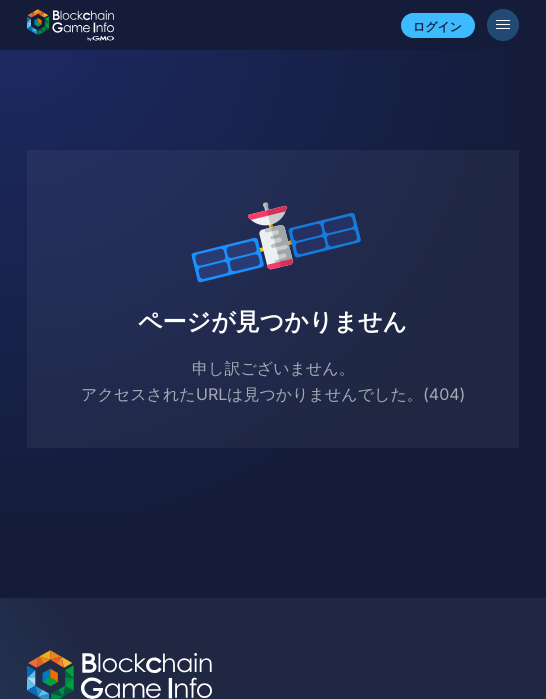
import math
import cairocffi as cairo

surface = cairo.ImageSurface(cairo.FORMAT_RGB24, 546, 699)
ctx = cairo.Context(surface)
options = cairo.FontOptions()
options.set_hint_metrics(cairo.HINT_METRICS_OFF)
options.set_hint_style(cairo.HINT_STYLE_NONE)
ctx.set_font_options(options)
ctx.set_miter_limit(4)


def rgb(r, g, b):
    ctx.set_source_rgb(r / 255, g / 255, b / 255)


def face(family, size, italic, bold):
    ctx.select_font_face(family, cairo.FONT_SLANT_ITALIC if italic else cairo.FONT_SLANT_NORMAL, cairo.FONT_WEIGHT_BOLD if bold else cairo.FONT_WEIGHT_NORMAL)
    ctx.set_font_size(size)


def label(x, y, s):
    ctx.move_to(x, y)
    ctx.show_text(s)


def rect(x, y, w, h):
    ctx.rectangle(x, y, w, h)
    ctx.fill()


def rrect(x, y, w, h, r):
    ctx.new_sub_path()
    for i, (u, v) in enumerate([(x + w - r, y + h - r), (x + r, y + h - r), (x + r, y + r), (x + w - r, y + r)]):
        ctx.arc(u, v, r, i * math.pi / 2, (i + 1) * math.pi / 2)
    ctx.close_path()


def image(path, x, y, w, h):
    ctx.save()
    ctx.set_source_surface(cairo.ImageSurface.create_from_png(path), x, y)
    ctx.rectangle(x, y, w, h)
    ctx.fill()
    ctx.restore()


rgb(20, 28, 57)
ctx.paint()
image('image0.png', 27, 9, 87, 32)
rgb(62, 186, 255)
rrect(401.5, 13.5, 73, 24, 12)
ctx.fill_preserve()
ctx.set_line_width(1)
ctx.stroke()
face('WenQuanYi Zen Hei', 12, 0, 1)
rgb(20, 28, 57)
label(413, 31, 'ログイン')
rgb(33, 75, 116)
ctx.new_path()
ctx.arc(503, 25, 16, 0, 2 * math.pi)
ctx.fill()
rgb(255, 255, 255)
rect(496, 20, 14, 1)
rect(496, 24, 14, 1)
rect(496, 28, 14, 1)
gradient = cairo.RadialGradient(6.7, 13, 0, 6.7, 13, 533)
gradient.add_color_stop_rgba(0, 0.114, 0.165, 0.392, 1)
gradient.add_color_stop_rgba(1, 0.078, 0.11, 0.224, 1)
ctx.set_source(gradient)
rect(0, 50, 507, 465)
ctx.set_source_rgba(1, 1, 1, 0.05)
rect(27, 150, 492, 298)
image('image1.png', 191, 202, 170, 81)
face('WenQuanYi Zen Hei', 24, 0, 1)
rgb(255, 255, 255)
label(138, 330, 'ページが見つかりません')
face('WenQuanYi Zen Hei Medium', 16, 0, 0)
rgb(166, 170, 183)
label(192, 374, '申し訳ございません。')
label(81, 400, 'アクセスされた')
face('Inter', 16, 0, 0)
label(196, 400, 'URL')
face('WenQuanYi Zen Hei Medium', 16, 0, 0)
label(227, 400, 'は見つかりませんでした。')
face('Inter', 16, 0, 0)
label(423, 400, '(404)')
gradient = cairo.LinearGradient(-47, 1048, 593, 679)
gradient.add_color_stop_rgba(0.03, 0.153, 0.275, 0.412, 1)
gradient.add_color_stop_rgba(0.43, 0.125, 0.153, 0.263, 1)
ctx.set_source(gradient)
rect(0, 598, 546, 101)
image('image2.png', 27, 650, 185, 49)
surface.write_to_png('render.png')
